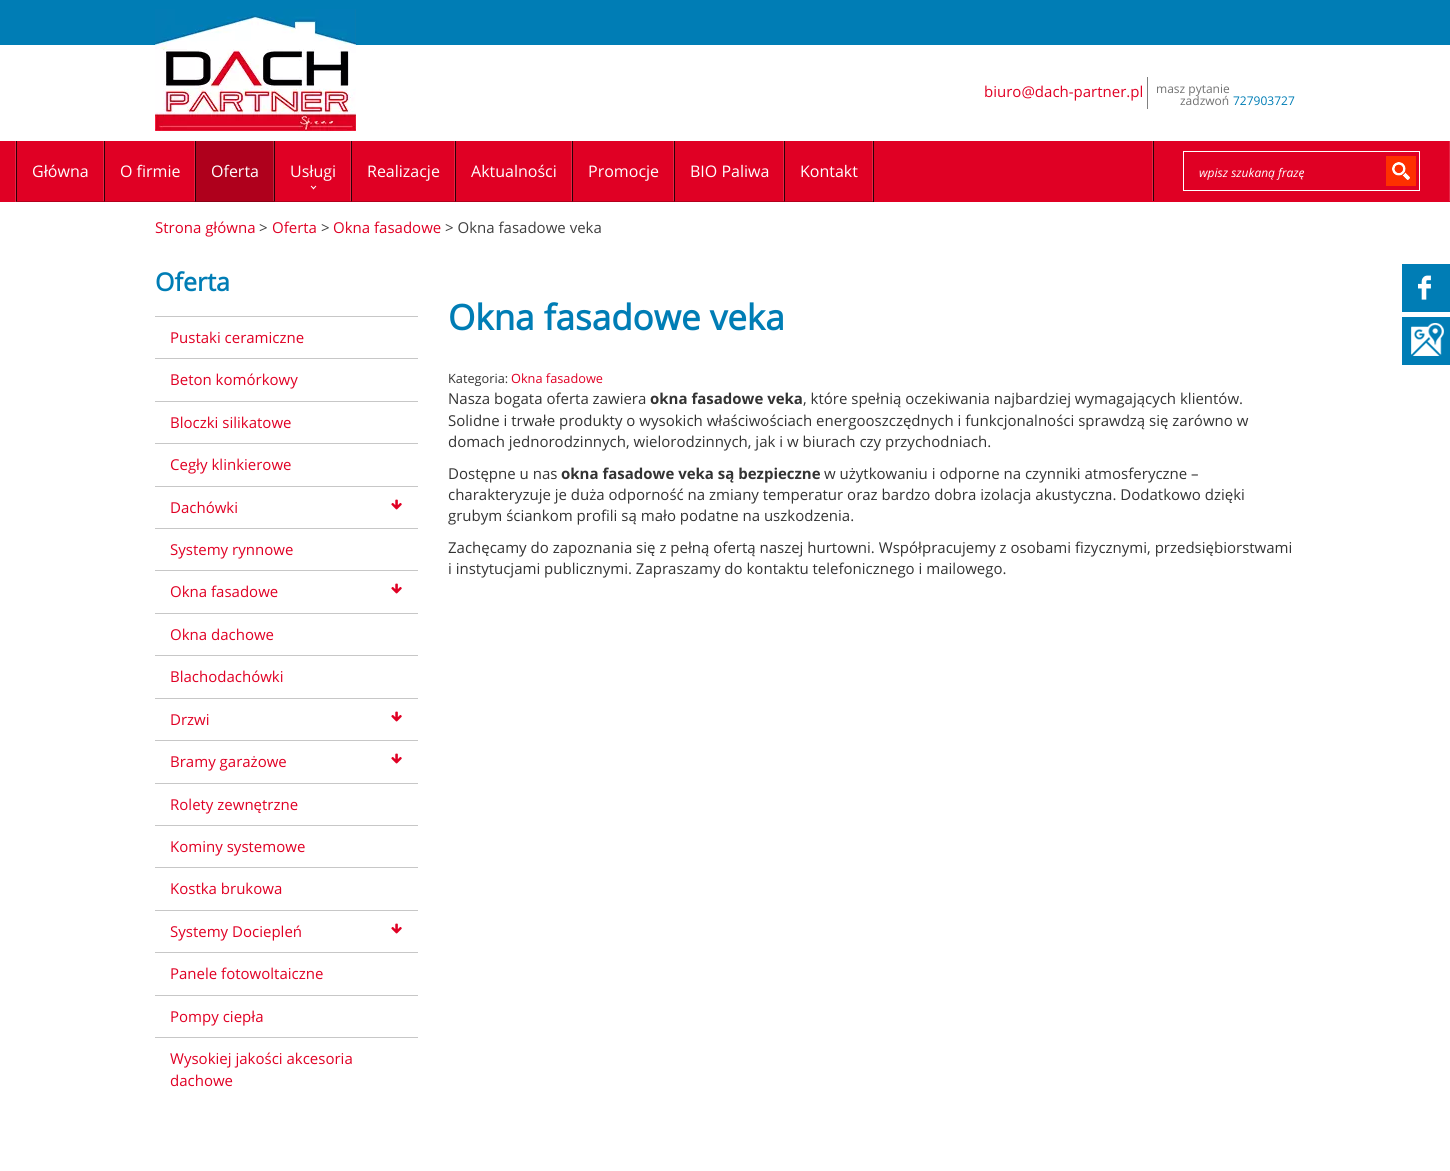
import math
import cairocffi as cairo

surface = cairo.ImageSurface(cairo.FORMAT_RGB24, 1450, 1171)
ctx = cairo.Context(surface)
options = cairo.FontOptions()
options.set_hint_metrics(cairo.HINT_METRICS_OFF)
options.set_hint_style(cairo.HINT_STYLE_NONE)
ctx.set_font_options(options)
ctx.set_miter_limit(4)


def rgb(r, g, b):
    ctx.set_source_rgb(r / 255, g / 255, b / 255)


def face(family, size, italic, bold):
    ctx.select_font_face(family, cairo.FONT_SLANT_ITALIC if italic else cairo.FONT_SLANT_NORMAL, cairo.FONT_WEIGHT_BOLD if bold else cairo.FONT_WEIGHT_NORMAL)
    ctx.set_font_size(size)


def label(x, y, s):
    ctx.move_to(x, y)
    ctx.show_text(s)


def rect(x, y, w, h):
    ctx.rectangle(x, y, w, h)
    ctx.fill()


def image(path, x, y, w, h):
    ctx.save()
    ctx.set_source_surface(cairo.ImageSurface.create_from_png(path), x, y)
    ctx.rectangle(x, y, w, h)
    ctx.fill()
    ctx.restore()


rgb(255, 255, 255)
ctx.paint()
rgb(0, 125, 181)
rect(0, 0, 1450, 45)
image('image0.png', 155, 9, 201, 122)
face('Open Sans', 15, 0, 0)
rgb(224, 0, 36)
label(984, 97, 'biuro@dach-partner.pl')
rgb(128, 128, 128)
rect(1147, 77, 1, 32)
face('Open Sans', 12, 0, 0)
rgb(113, 113, 113)
label(1156, 93, 'masz pytanie')
label(1180, 105, 'zadzwoń')
rgb(0, 125, 181)
label(1233, 105, '727903727')
rgb(224, 0, 36)
rect(0, 141, 1450, 61)
rgb(229, 38, 69)
rect(15, 141, 1, 61)
rect(103, 141, 1, 60)
rgb(179, 0, 29)
ctx.new_path()
ctx.move_to(104, 202)
ctx.line_to(16, 202)
ctx.line_to(17, 201)
ctx.line_to(104, 201)
ctx.close_path()
ctx.fill()
ctx.set_source_rgba(0, 0, 0, 0.8)
ctx.new_path()
ctx.move_to(16, 202)
ctx.line_to(16, 141)
ctx.line_to(17, 141)
ctx.line_to(17, 201)
ctx.close_path()
ctx.fill()
face('Open Sans', 16, 0, 0)
rgb(255, 255, 255)
label(32, 177, 'Główna')
rgb(229, 38, 69)
rect(194, 141, 1, 60)
rgb(179, 0, 29)
ctx.new_path()
ctx.move_to(195, 202)
ctx.line_to(104, 202)
ctx.line_to(105, 201)
ctx.line_to(195, 201)
ctx.close_path()
ctx.fill()
ctx.set_source_rgba(0, 0, 0, 0.8)
ctx.new_path()
ctx.move_to(104, 202)
ctx.line_to(104, 141)
ctx.line_to(105, 141)
ctx.line_to(105, 201)
ctx.close_path()
ctx.fill()
rgb(255, 255, 255)
label(120, 177, 'O firmie')
rgb(175, 0, 28)
rect(195, 141, 78, 61)
rgb(187, 38, 62)
rect(273, 141, 1, 60)
rgb(140, 0, 22)
ctx.new_path()
ctx.move_to(274, 202)
ctx.line_to(195, 202)
ctx.line_to(196, 201)
ctx.line_to(274, 201)
ctx.close_path()
ctx.fill()
ctx.set_source_rgba(0, 0, 0, 0.8)
ctx.new_path()
ctx.move_to(195, 202)
ctx.line_to(195, 141)
ctx.line_to(196, 141)
ctx.line_to(196, 201)
ctx.close_path()
ctx.fill()
rgb(255, 255, 255)
label(211, 177, 'Oferta')
image('image1.png', 310, 185, 7, 5)
rgb(229, 38, 69)
rect(350, 141, 1, 60)
rgb(179, 0, 29)
ctx.new_path()
ctx.move_to(351, 202)
ctx.line_to(274, 202)
ctx.line_to(275, 201)
ctx.line_to(351, 201)
ctx.close_path()
ctx.fill()
ctx.set_source_rgba(0, 0, 0, 0.8)
ctx.new_path()
ctx.move_to(274, 202)
ctx.line_to(274, 141)
ctx.line_to(275, 141)
ctx.line_to(275, 201)
ctx.close_path()
ctx.fill()
rgb(255, 255, 255)
label(290, 177, 'Usługi')
rgb(229, 38, 69)
rect(454, 141, 1, 60)
rgb(179, 0, 29)
ctx.new_path()
ctx.move_to(455, 202)
ctx.line_to(351, 202)
ctx.line_to(352, 201)
ctx.line_to(455, 201)
ctx.close_path()
ctx.fill()
ctx.set_source_rgba(0, 0, 0, 0.8)
ctx.new_path()
ctx.move_to(351, 202)
ctx.line_to(351, 141)
ctx.line_to(352, 141)
ctx.line_to(352, 201)
ctx.close_path()
ctx.fill()
rgb(255, 255, 255)
label(367, 177, 'Realizacje')
rgb(229, 38, 69)
rect(571, 141, 1, 60)
rgb(179, 0, 29)
ctx.new_path()
ctx.move_to(572, 202)
ctx.line_to(455, 202)
ctx.line_to(456, 201)
ctx.line_to(572, 201)
ctx.close_path()
ctx.fill()
ctx.set_source_rgba(0, 0, 0, 0.8)
ctx.new_path()
ctx.move_to(455, 202)
ctx.line_to(455, 141)
ctx.line_to(456, 141)
ctx.line_to(456, 201)
ctx.close_path()
ctx.fill()
rgb(255, 255, 255)
label(471, 177, 'Aktualności')
rgb(229, 38, 69)
rect(673, 141, 1, 60)
rgb(179, 0, 29)
ctx.new_path()
ctx.move_to(674, 202)
ctx.line_to(572, 202)
ctx.line_to(573, 201)
ctx.line_to(674, 201)
ctx.close_path()
ctx.fill()
ctx.set_source_rgba(0, 0, 0, 0.8)
ctx.new_path()
ctx.move_to(572, 202)
ctx.line_to(572, 141)
ctx.line_to(573, 141)
ctx.line_to(573, 201)
ctx.close_path()
ctx.fill()
rgb(255, 255, 255)
label(588, 177, 'Promocje')
rgb(229, 38, 69)
rect(783, 141, 1, 60)
rgb(179, 0, 29)
ctx.new_path()
ctx.move_to(784, 202)
ctx.line_to(674, 202)
ctx.line_to(675, 201)
ctx.line_to(784, 201)
ctx.close_path()
ctx.fill()
ctx.set_source_rgba(0, 0, 0, 0.8)
ctx.new_path()
ctx.move_to(674, 202)
ctx.line_to(674, 141)
ctx.line_to(675, 141)
ctx.line_to(675, 201)
ctx.close_path()
ctx.fill()
rgb(255, 255, 255)
label(690, 177, 'BIO Paliwa')
rgb(229, 38, 69)
rect(872, 141, 1, 60)
rgb(179, 0, 29)
ctx.new_path()
ctx.move_to(873, 202)
ctx.line_to(784, 202)
ctx.line_to(785, 201)
ctx.line_to(873, 201)
ctx.close_path()
ctx.fill()
ctx.set_source_rgba(0, 0, 0, 0.8)
ctx.new_path()
ctx.move_to(784, 202)
ctx.line_to(784, 141)
ctx.line_to(785, 141)
ctx.line_to(785, 201)
ctx.close_path()
ctx.fill()
rgb(255, 255, 255)
label(800, 177, 'Kontakt')
rgb(45, 0, 7)
rect(873, 141, 1, 61)
rect(1153, 141, 1, 60)
rgb(229, 38, 69)
rect(1152, 141, 1, 60)
ctx.rectangle(1183.5, 151.5, 236, 39)
rgb(255, 255, 255)
ctx.set_line_width(1)
ctx.stroke()
face('Open Sans', 12, 1, 0)
label(1199, 177, 'wpisz szukaną frazę')
rgb(254, 48, 0)
rect(1386, 156, 30, 30)
image('image2.png', 1392, 162, 18, 18)
rgb(229, 38, 69)
rect(1449, 141, 1, 60)
face('Open Sans', 15, 0, 0)
rgb(224, 0, 36)
label(155, 233, 'Strona główna')
rgb(63, 63, 63)
label(259, 233, '>')
rgb(224, 0, 36)
label(272, 233, 'Oferta')
rgb(63, 63, 63)
label(321, 233, '>')
rgb(224, 0, 36)
label(333, 233, 'Okna fasadowe')
rgb(63, 63, 63)
label(445, 233, '> Okna fasadowe veka')
face('Open Sans', 25, 0, 1)
rgb(0, 125, 181)
label(155, 291, 'Oferta')
rgb(199, 199, 199)
rect(155, 316, 263, 1)
face('Open Sans', 15, 0, 0)
rgb(224, 0, 36)
label(170, 343, 'Pustaki ceramiczne')
rgb(199, 199, 199)
rect(155, 358, 263, 1)
rgb(224, 0, 36)
label(170, 385, 'Beton komórkowy')
rgb(199, 199, 199)
rect(155, 401, 263, 1)
rgb(224, 0, 36)
label(170, 428, 'Bloczki silikatowe')
rgb(199, 199, 199)
rect(155, 443, 263, 1)
rgb(224, 0, 36)
label(170, 470, 'Cegły klinkierowe')
rgb(199, 199, 199)
rect(155, 486, 263, 1)
rgb(224, 0, 36)
label(170, 513, 'Dachówki')
image('image3.png', 391, 499, 11, 11)
rgb(199, 199, 199)
rect(155, 528, 263, 1)
rgb(224, 0, 36)
label(170, 555, 'Systemy rynnowe')
rgb(199, 199, 199)
rect(155, 570, 263, 1)
rgb(224, 0, 36)
label(170, 597, 'Okna fasadowe')
image('image3.png', 391, 583, 11, 11)
rgb(199, 199, 199)
rect(155, 613, 263, 1)
rgb(224, 0, 36)
label(170, 640, 'Okna dachowe')
rgb(199, 199, 199)
rect(155, 655, 263, 1)
rgb(224, 0, 36)
label(170, 682, 'Blachodachówki')
rgb(199, 199, 199)
rect(155, 698, 263, 1)
rgb(224, 0, 36)
label(170, 725, 'Drzwi')
image('image3.png', 391, 711, 11, 11)
rgb(199, 199, 199)
rect(155, 740, 263, 1)
rgb(224, 0, 36)
label(170, 767, 'Bramy garażowe')
image('image3.png', 391, 753, 11, 11)
rgb(199, 199, 199)
rect(155, 783, 263, 1)
rgb(224, 0, 36)
label(170, 810, 'Rolety zewnętrzne')
rgb(199, 199, 199)
rect(155, 825, 263, 1)
rgb(224, 0, 36)
label(170, 852, 'Kominy systemowe')
rgb(199, 199, 199)
rect(155, 867, 263, 1)
rgb(224, 0, 36)
label(170, 894, 'Kostka brukowa')
rgb(199, 199, 199)
rect(155, 910, 263, 1)
rgb(224, 0, 36)
label(170, 937, 'Systemy Dociepleń')
image('image3.png', 391, 923, 11, 11)
rgb(199, 199, 199)
rect(155, 952, 263, 1)
rgb(224, 0, 36)
label(170, 979, 'Panele fotowoltaiczne')
rgb(199, 199, 199)
rect(155, 995, 263, 1)
rgb(224, 0, 36)
label(170, 1022, 'Pompy ciepła')
rgb(199, 199, 199)
rect(155, 1037, 263, 1)
rgb(224, 0, 36)
label(170, 1064, 'Wysokiej jakości akcesoria')
label(170, 1086, 'dachowe')
face('Open Sans', 35, 0, 1)
rgb(0, 125, 181)
label(448, 330, 'Okna fasadowe veka')
face('Open Sans', 12.75, 0, 0)
rgb(51, 51, 51)
label(448, 383, 'Kategoria:')
rgb(224, 0, 36)
label(511, 383, 'Okna fasadowe')
face('Open Sans', 15, 0, 0)
rgb(51, 51, 51)
label(448, 404, 'Nasza bogata oferta zawiera')
face('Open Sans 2', 15, 0, 1)
label(650, 404, 'okna fasadowe veka')
face('Open Sans', 15, 0, 0)
label(803, 404, ', które spełnią oczekiwania najbardziej wymagających klientów.')
label(448, 426, 'Solidne i trwałe produkty o wysokich właściwościach energooszczędnych i funkcjonalności sprawdzą się zarówno w')
label(448, 447, 'domach jednorodzinnych, wielorodzinnych, jak i w biurach czy przychodniach.')
label(448, 479, 'Dostępne u nas')
face('Open Sans 2', 15, 0, 1)
label(561, 479, 'okna fasadowe veka są bezpieczne')
face('Open Sans', 15, 0, 0)
label(824, 479, 'w użytkowaniu i odporne na czynniki atmosferyczne –')
label(448, 500, 'charakteryzuje je duża odporność na zmiany temperatur oraz bardzo dobra izolacja akustyczna. Dodatkowo dzięki')
label(448, 521, 'grubym ściankom profili są mało podatne na uszkodzenia.')
label(448, 553, 'Zachęcamy do zapoznania się z pełną ofertą naszej hurtowni. Współpracujemy z osobami fizycznymi, przedsiębiorstwami')
label(448, 574, 'i instytucjami publicznymi. Zapraszamy do kontaktu telefonicznego i mailowego.')
rgb(0, 125, 181)
rect(1402, 264, 48, 48)
image('image4.png', 1418, 275, 13, 25)
rect(1402, 317, 48, 48)
image('image5.png', 1411, 323, 33, 33)
surface.write_to_png('render.png')
